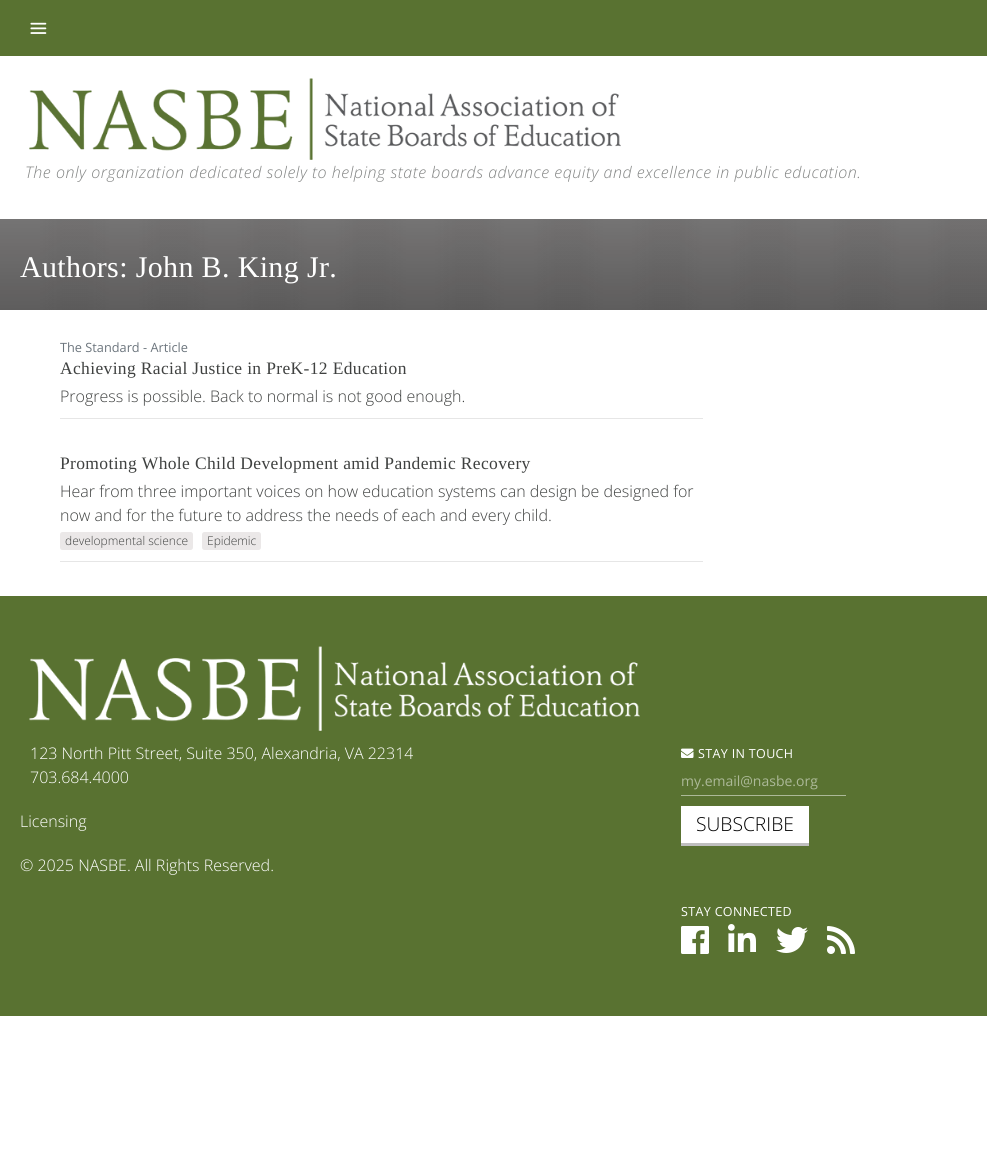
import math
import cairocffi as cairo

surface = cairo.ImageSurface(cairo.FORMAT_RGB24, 987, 1152)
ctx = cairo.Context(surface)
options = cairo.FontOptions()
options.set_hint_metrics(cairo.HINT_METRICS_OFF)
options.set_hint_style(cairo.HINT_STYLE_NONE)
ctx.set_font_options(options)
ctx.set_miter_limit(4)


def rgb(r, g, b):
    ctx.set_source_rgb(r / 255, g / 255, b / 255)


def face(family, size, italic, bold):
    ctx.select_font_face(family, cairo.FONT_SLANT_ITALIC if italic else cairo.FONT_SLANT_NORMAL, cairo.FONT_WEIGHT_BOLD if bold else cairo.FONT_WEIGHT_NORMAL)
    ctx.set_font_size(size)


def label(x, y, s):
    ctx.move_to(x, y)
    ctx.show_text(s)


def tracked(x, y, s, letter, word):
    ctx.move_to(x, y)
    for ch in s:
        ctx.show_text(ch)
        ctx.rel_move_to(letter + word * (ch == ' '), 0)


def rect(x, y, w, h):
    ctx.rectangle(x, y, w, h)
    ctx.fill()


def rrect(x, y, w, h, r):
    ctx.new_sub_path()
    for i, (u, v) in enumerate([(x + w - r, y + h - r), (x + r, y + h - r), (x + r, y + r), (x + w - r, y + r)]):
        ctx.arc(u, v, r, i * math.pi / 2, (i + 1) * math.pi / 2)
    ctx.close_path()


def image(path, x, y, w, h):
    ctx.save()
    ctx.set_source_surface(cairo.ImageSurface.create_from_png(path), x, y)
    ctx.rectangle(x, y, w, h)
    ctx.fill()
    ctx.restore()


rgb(255, 255, 255)
ctx.paint()
rgb(89, 114, 49)
rect(0, 0, 987, 56)
image('image0.png', 30, 22, 17, 12)
image('image1.png', 29, 78, 592, 82)
face('Open Sans Light', 16, 1, 0)
rgb(130, 132, 131)
tracked(25, 178, 'The only organization dedicated solely to helping state boards advance equity and excellence in public education.', 0.5, 0)
rgb(235, 232, 232)
rect(0, 219, 987, 91)
image('image2.png', 0, 219, 987, 91)
face('Liberation Serif', 30, 0, 0)
rgb(255, 255, 255)
tracked(20, 277, 'Authors: John B. King Jr.', 0.35, 0)
face('Open Sans', 12.75, 0, 0)
rgb(108, 117, 125)
label(60, 352, 'The Standard - Article')
face('Liberation Serif', 17.5, 0, 0)
rgb(63, 65, 64)
tracked(60, 374, 'Achieving Racial Justice in PreK-12 Education', 0.35, 0)
face('Open Sans Light', 16, 0, 0)
label(60, 402, 'Progress is possible. Back to normal is not good enough.')
rgb(230, 230, 230)
rect(60, 418, 643, 1)
face('Liberation Serif', 17.5, 0, 0)
rgb(63, 65, 64)
tracked(60, 469, 'Promoting Whole Child Development amid Pandemic Recovery', 0.35, 0)
face('Open Sans Light', 16, 0, 0)
label(60, 497, 'Hear from three important voices on how education systems can design be designed for')
label(60, 521, 'now and for the future to address the needs of each and every child.')
rgb(235, 232, 232)
rrect(60, 532, 133, 18, 2.5)
ctx.fill()
face('Open Sans Light', 12, 0, 0)
rgb(63, 65, 64)
label(65, 545, 'developmental science')
rgb(235, 232, 232)
rrect(202, 532, 59, 18, 2.5)
ctx.fill()
rgb(63, 65, 64)
label(207, 545, 'Epidemic')
rgb(230, 230, 230)
rect(60, 561, 643, 1)
rgb(89, 114, 49)
rect(0, 596, 987, 420)
image('image3.png', 29, 646, 611, 85)
face('Open Sans Light', 16, 0, 0)
rgb(255, 255, 255)
label(30, 759, '123 North Pitt Street, Suite 350, Alexandria, VA 22314')
label(30, 783, '703.684.4000')
label(20, 827, 'Licensing')
label(20, 871, '© 2025 NASBE. All Rights Reserved.')
image('image4.png', 681, 748, 13, 10)
face('Open Sans', 12.5, 0, 0)
tracked(698, 758, 'STAY IN TOUCH', 0.35, 0)
rgb(172, 185, 152)
rect(681, 795, 165, 1)
face('Open Sans', 14, 0, 0)
label(681, 786, 'my.email@nasbe.org')
rgb(255, 255, 255)
rect(681, 806, 128, 37)
rgb(191, 191, 191)
rect(681, 843, 128, 3)
face('Open Sans Light', 19.25, 0, 0)
rgb(0, 0, 0)
label(696, 831, 'SUBSCRIBE')
face('Open Sans', 12.5, 0, 0)
rgb(255, 255, 255)
tracked(681, 916, 'STAY CONNECTED', 0.35, 0)
image('image5.png', 681, 926, 28, 28)
image('image6.png', 728, 924, 28, 28)
image('image7.png', 776, 927, 32, 26)
image('image8.png', 827, 926, 28, 28)
surface.write_to_png('render.png')
